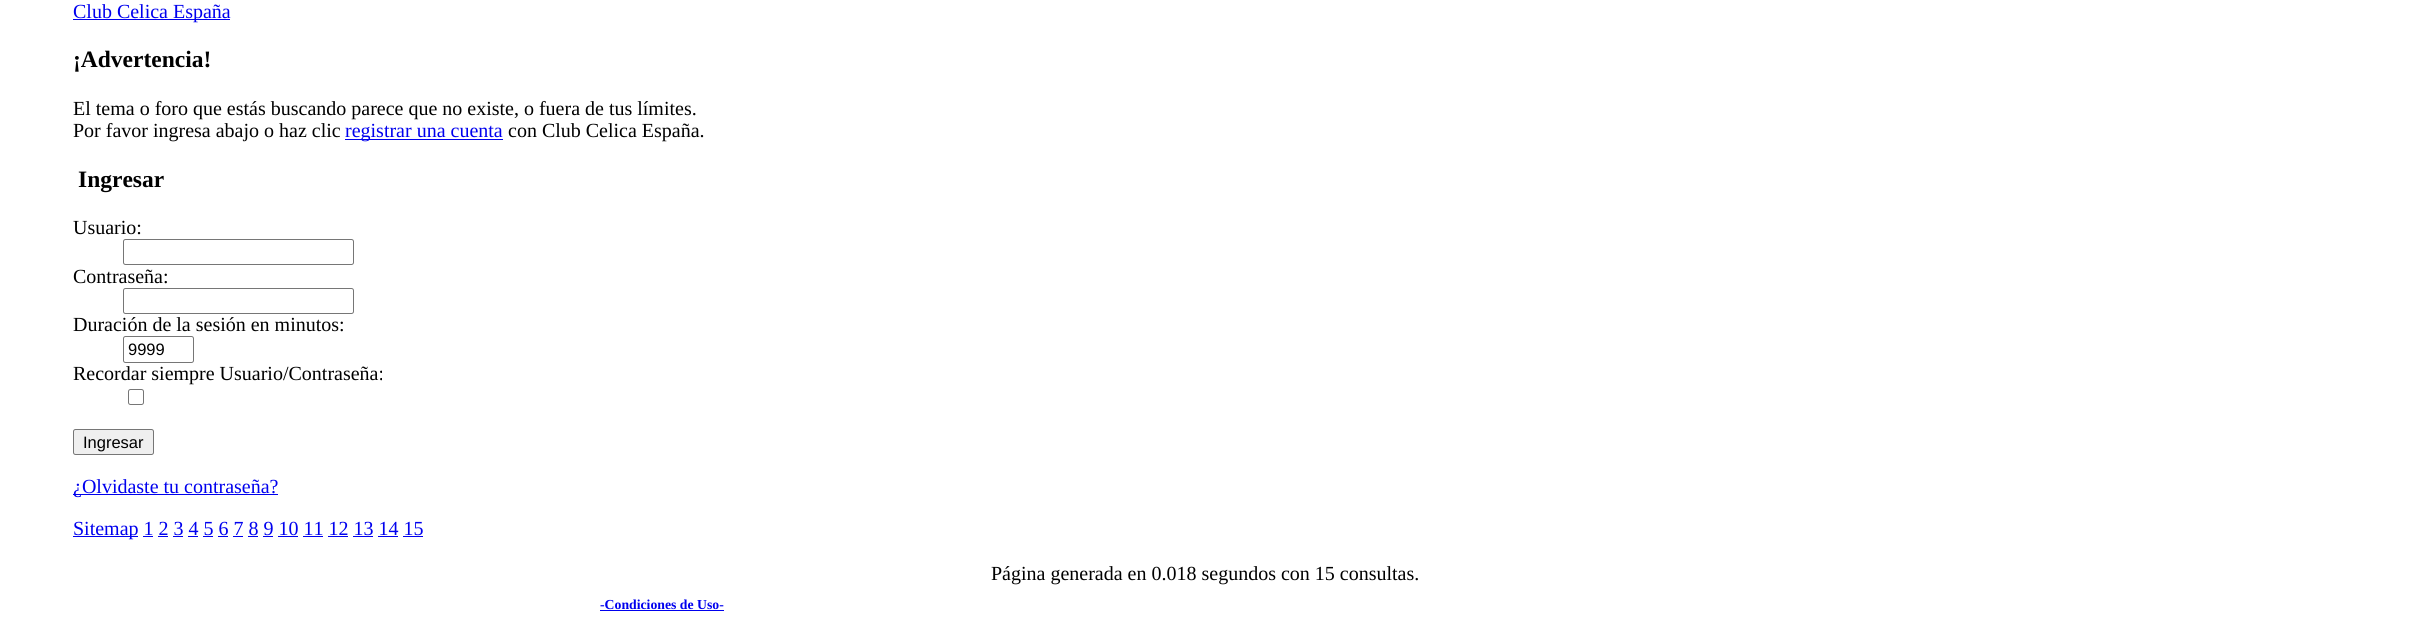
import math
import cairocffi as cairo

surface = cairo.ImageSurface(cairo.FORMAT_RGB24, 2410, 624)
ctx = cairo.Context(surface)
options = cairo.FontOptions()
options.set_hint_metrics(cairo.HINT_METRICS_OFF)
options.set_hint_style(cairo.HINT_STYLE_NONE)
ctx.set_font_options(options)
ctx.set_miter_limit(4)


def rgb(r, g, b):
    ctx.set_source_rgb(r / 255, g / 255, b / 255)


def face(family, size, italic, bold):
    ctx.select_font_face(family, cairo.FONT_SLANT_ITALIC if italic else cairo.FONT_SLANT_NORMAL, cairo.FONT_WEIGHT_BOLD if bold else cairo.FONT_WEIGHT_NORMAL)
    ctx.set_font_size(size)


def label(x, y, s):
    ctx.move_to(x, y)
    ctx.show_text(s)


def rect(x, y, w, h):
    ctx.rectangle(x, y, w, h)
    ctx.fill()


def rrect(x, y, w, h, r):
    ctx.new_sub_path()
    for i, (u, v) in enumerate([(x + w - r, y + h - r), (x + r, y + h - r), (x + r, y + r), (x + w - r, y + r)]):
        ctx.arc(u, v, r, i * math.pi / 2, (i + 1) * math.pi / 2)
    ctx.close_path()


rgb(255, 255, 255)
ctx.paint()
rgb(0, 0, 238)
rect(73, 19, 157, 1)
face('Liberation Serif', 20, 0, 0)
label(73, 18, 'Club Celica España')
face('Liberation Serif', 23.5, 0, 1)
rgb(0, 0, 0)
label(73, 67, '¡Advertencia!')
face('Liberation Serif', 20, 0, 0)
label(73, 115, 'El tema o foro que estás buscando parece que no existe, o fuera de tus límites.')
label(73, 137, 'Por favor ingresa abajo o haz clic')
rgb(0, 0, 238)
rect(345, 139, 158, 1)
label(345, 137, 'registrar una cuenta')
rgb(0, 0, 0)
label(508, 137, 'con Club Celica España.')
face('Liberation Serif', 23.5, 0, 1)
label(78, 187, 'Ingresar')
face('Liberation Serif', 20, 0, 0)
label(73, 234, 'Usuario:')
rrect(123.5, 239.5, 230, 25, 2)
rgb(118, 118, 118)
ctx.set_line_width(1)
ctx.stroke()
rgb(0, 0, 0)
label(73, 283, 'Contraseña:')
rrect(123.5, 288.5, 230, 25, 2)
rgb(118, 118, 118)
ctx.stroke()
rgb(0, 0, 0)
label(73, 331, 'Duración de la sesión en minutos:')
rrect(123.5, 336.5, 70, 26, 2)
rgb(118, 118, 118)
ctx.stroke()
face('Liberation Sans', 16.5, 0, 0)
rgb(0, 0, 0)
label(128, 355, '9999')
face('Liberation Serif', 20, 0, 0)
label(73, 380, 'Recordar siempre Usuario/Contraseña:')
rrect(128.5, 389.5, 15, 15, 2)
rgb(118, 118, 118)
ctx.stroke()
rgb(239, 239, 239)
rrect(73.5, 429.5, 80, 25, 2)
ctx.fill_preserve()
rgb(118, 118, 118)
ctx.stroke()
face('Liberation Sans', 16.5, 0, 0)
rgb(0, 0, 0)
label(83, 448, 'Ingresar')
rgb(0, 0, 238)
rect(73, 494, 205, 1)
face('Liberation Serif', 20, 0, 0)
label(73, 493, '¿Olvidaste tu contraseña?')
rect(73, 536, 65, 1)
label(73, 535, 'Sitemap 1 2 3 4 5 6 7 8 9 10 11 12 13 14 15')
rect(143, 536, 10, 1)
rect(158, 536, 10, 1)
rect(173, 536, 10, 1)
rect(188, 536, 10, 1)
rect(203, 536, 10, 1)
rect(218, 536, 10, 1)
rect(233, 536, 10, 1)
rect(248, 536, 10, 1)
rect(263, 536, 10, 1)
rect(278, 536, 20, 1)
rect(303, 536, 20, 1)
rect(328, 536, 20, 1)
rect(353, 536, 20, 1)
rect(378, 536, 20, 1)
rect(403, 536, 20, 1)
rgb(0, 0, 0)
label(991, 580, 'Página generada en 0.018 segundos con 15 consultas.')
face('Liberation Serif', 13.75, 0, 1)
rgb(0, 0, 238)
label(600, 609, '-Condiciones de Uso-')
rect(600, 610, 124, 1)
surface.write_to_png('render.png')
